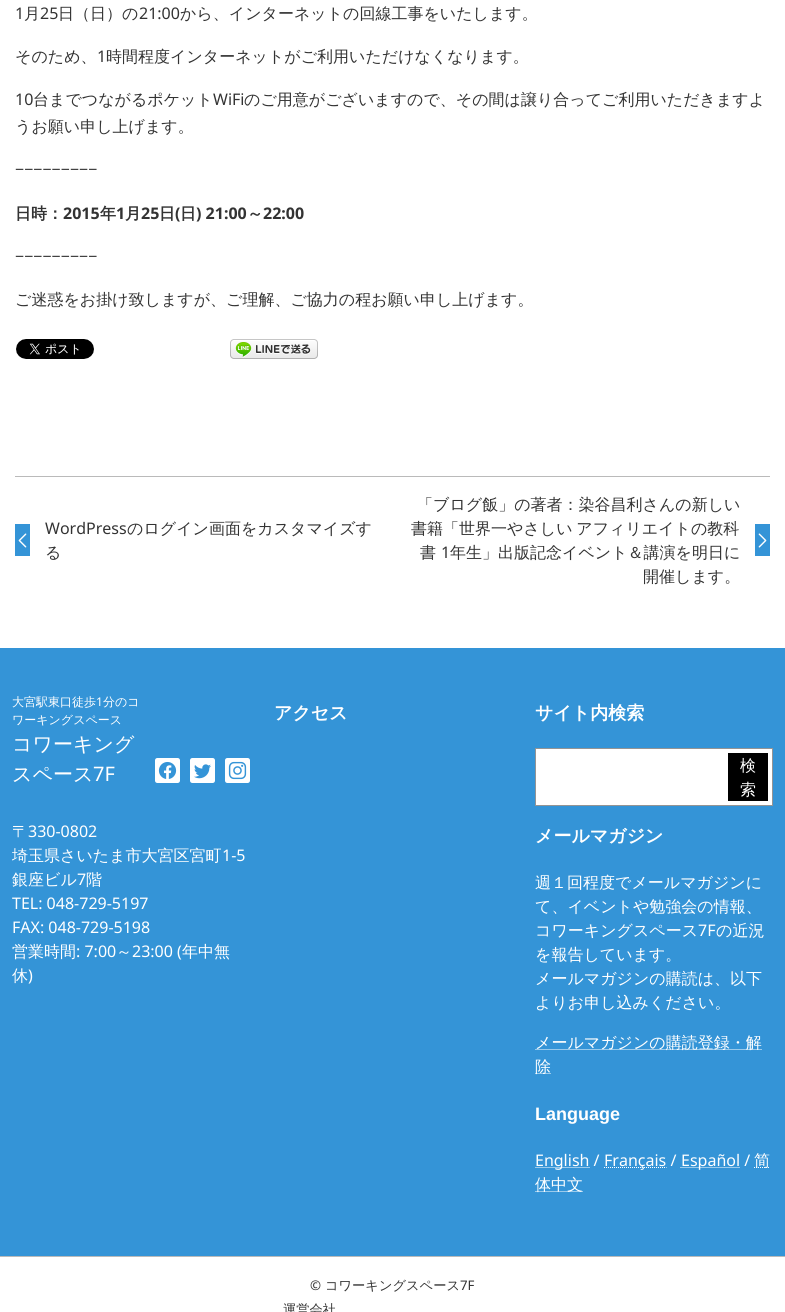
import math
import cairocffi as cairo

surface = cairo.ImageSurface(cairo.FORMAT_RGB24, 785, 1312)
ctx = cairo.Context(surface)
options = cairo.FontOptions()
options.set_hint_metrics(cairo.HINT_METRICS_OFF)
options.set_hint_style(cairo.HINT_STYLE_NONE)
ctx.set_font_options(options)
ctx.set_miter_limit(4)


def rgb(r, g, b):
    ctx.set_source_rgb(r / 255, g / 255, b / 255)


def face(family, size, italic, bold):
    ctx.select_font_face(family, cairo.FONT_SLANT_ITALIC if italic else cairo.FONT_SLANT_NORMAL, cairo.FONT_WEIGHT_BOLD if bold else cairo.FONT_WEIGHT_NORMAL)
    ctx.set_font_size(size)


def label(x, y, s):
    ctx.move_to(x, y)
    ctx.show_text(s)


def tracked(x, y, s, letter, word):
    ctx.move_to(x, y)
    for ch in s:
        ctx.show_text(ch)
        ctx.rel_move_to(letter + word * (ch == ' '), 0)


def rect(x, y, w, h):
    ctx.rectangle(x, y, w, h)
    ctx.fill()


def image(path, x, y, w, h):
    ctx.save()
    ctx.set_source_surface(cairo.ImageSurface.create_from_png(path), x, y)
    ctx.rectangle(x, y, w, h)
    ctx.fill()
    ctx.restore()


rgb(255, 255, 255)
ctx.paint()
face('Noto Sans', 16, 0, 0)
rgb(51, 51, 51)
label(15, 19, '1')
face('WenQuanYi Zen Hei Medium', 16, 0, 0)
label(24, 19, '月')
face('Noto Sans', 16, 0, 0)
label(40, 19, '25')
face('WenQuanYi Zen Hei Medium', 16, 0, 0)
label(58, 19, '日（日）の')
face('Noto Sans', 16, 0, 0)
label(139, 19, '21:00')
face('WenQuanYi Zen Hei Medium', 16, 0, 0)
label(180, 19, 'から、インターネットの回線工事をいたします。')
label(15, 62, 'そのため、')
face('Noto Sans', 16, 0, 0)
label(97, 62, '1')
face('WenQuanYi Zen Hei Medium', 16, 0, 0)
label(106, 62, '時間程度インターネットがご利用いただけなくなります。')
face('Noto Sans', 16, 0, 0)
label(15, 105, '10')
face('WenQuanYi Zen Hei Medium', 16, 0, 0)
label(33, 105, '台までつながるポケット')
face('Noto Sans', 16, 0, 0)
label(213, 105, 'WiFi')
face('WenQuanYi Zen Hei Medium', 16, 0, 0)
label(244, 105, 'のご用意がございますので、その間は譲り合ってご利用いただきますよ')
label(15, 132, 'うお願い申し上げます。')
face('Noto Sans', 16, 0, 0)
label(15, 175, '−−−−−−−−−')
face('WenQuanYi Zen Hei', 16, 0, 1)
label(15, 219, '日時：')
face('Noto Sans', 16, 0, 1)
label(63, 219, '2015')
face('WenQuanYi Zen Hei', 16, 0, 1)
label(100, 219, '年')
face('Noto Sans', 16, 0, 1)
label(116, 219, '1')
face('WenQuanYi Zen Hei', 16, 0, 1)
label(125, 219, '月')
face('Noto Sans', 16, 0, 1)
label(141, 219, '25')
face('WenQuanYi Zen Hei', 16, 0, 1)
label(159, 219, '日')
face('Noto Sans', 16, 0, 1)
label(175, 219, '(')
face('WenQuanYi Zen Hei', 16, 0, 1)
label(180, 219, '日')
face('Noto Sans', 16, 0, 1)
label(196, 219, ') 21:00')
face('WenQuanYi Zen Hei', 16, 0, 1)
label(247, 219, '～')
face('Noto Sans', 16, 0, 1)
label(263, 219, '22:00')
face('Noto Sans', 16, 0, 0)
label(15, 262, '−−−−−−−−−')
face('WenQuanYi Zen Hei Medium', 16, 0, 0)
label(15, 305, 'ご迷惑をお掛け致しますが、ご理解、ご協力の程お願い申し上げます。')
image('image0.png', 16, 339, 78, 20)
image('image1.png', 230, 339, 88, 20)
rgb(186, 186, 186)
rect(15, 476, 755, 1)
rgb(52, 148, 215)
rect(15, 524, 15, 32)
image('image2.png', 18, 533, 9, 15)
face('Noto Sans', 16, 0, 0)
rgb(51, 51, 51)
label(45, 534, 'WordPress')
face('WenQuanYi Zen Hei Medium', 16, 0, 0)
label(127, 534, 'のログイン画面をカスタマイズす')
label(45, 558, 'る')
label(417, 510, '「ブログ飯」の著者：染谷昌利さんの新しい')
tracked(411, 534, '書籍「世界一やさしい アフィリエイトの教科', 0, -1)
label(420, 558, '書')
face('Noto Sans', 16, 0, 0)
label(441, 558, '1')
face('WenQuanYi Zen Hei Medium', 16, 0, 0)
label(450, 558, '年生」出版記念イベント＆講演を明日に')
label(643, 582, '開催します。')
rgb(52, 148, 215)
rect(755, 524, 15, 32)
image('image3.png', 758, 533, 9, 15)
rect(0, 648, 785, 608)
face('WenQuanYi Zen Hei Medium', 12, 0, 0)
rgb(255, 255, 255)
label(12, 706, '大宮駅東口徒歩')
face('Noto Sans', 12, 0, 0)
label(96, 706, '1')
face('WenQuanYi Zen Hei Medium', 12, 0, 0)
label(103, 706, '分のコ')
label(12, 724, 'ワーキングスペース')
face('WenQuanYi Zen Hei Medium', 20, 0, 0)
label(12, 751, 'コワーキング')
label(12, 781, 'スペース')
face('Noto Sans', 20, 0, 0)
label(93, 781, '7F')
image('image4.png', 155, 758, 25, 25)
image('image5.png', 190, 758, 25, 25)
image('image6.png', 225, 758, 25, 25)
face('WenQuanYi Zen Hei Medium', 16, 0, 0)
label(12, 837, '〒')
face('Noto Sans', 16, 0, 0)
label(28, 837, '330-0802')
face('WenQuanYi Zen Hei Medium', 16, 0, 0)
label(12, 861, '埼玉県さいたま市大宮区宮町')
face('Noto Sans', 16, 0, 0)
label(222, 861, '1-5')
face('WenQuanYi Zen Hei Medium', 16, 0, 0)
label(12, 885, '銀座ビル')
face('Noto Sans', 16, 0, 0)
label(77, 885, '7')
face('WenQuanYi Zen Hei Medium', 16, 0, 0)
label(86, 885, '階')
face('Noto Sans', 16, 0, 0)
label(12, 909, 'TEL: 048-729-5197')
label(12, 933, 'FAX: 048-729-5198')
face('WenQuanYi Zen Hei Medium', 16, 0, 0)
label(12, 957, '営業時間')
face('Noto Sans', 16, 0, 0)
label(76, 957, ': 7:00')
face('WenQuanYi Zen Hei Medium', 16, 0, 0)
label(116, 957, '～')
face('Noto Sans', 16, 0, 0)
label(132, 957, '23:00 (')
face('WenQuanYi Zen Hei Medium', 16, 0, 0)
label(182, 957, '年中無')
label(12, 981, '休')
face('Noto Sans', 16, 0, 0)
label(28, 981, ')')
face('WenQuanYi Zen Hei', 18, 0, 1)
label(274, 719, 'アクセス')
label(535, 719, 'サイト内検索')
ctx.rectangle(535.5, 748.5, 237, 57)
ctx.fill_preserve()
rgb(148, 148, 148)
ctx.set_line_width(1)
ctx.stroke()
rgb(0, 0, 0)
rect(728, 753, 40, 48)
face('WenQuanYi Zen Hei Medium', 16, 0, 0)
rgb(255, 255, 255)
label(740, 771, '検')
label(740, 795, '索')
face('WenQuanYi Zen Hei', 18, 0, 1)
label(535, 842, 'メールマガジン')
face('WenQuanYi Zen Hei Medium', 16, 0, 0)
label(535, 888, '週１回程度でメールマガジンに')
label(535, 912, 'て、イベントや勉強会の情報、')
label(535, 936, 'コワーキングスペース')
face('Noto Sans', 16, 0, 0)
label(698, 936, '7F')
face('WenQuanYi Zen Hei Medium', 16, 0, 0)
label(716, 936, 'の近況')
label(535, 960, 'を報告しています。')
label(535, 984, 'メールマガジンの購読は、以下')
label(535, 1008, 'よりお申し込みください。')
ctx.new_path()
ctx.move_to(535.5, 1049.5)
ctx.line_to(762, 1049.5)
ctx.set_dash([1, 1])
ctx.stroke()
label(535, 1048, 'メールマガジンの購読登録・解')
ctx.new_path()
ctx.move_to(535.5, 1073.5)
ctx.line_to(551.5, 1073.5)
ctx.stroke()
label(535, 1072, '除')
face('Liberation Sans', 18, 0, 1)
label(535, 1120, 'Language')
ctx.new_path()
ctx.move_to(535.5, 1167.5)
ctx.line_to(590, 1167.5)
ctx.stroke()
face('Noto Sans', 16, 0, 0)
label(535, 1166, 'English /')
ctx.new_path()
ctx.move_to(604, 1167.5)
ctx.line_to(666.5, 1167.5)
ctx.stroke()
label(604, 1166, 'Français /')
ctx.new_path()
ctx.move_to(680.5, 1167.5)
ctx.line_to(739.5, 1167.5)
ctx.stroke()
label(681, 1166, 'Español /')
ctx.new_path()
ctx.move_to(754, 1167.5)
ctx.line_to(770, 1167.5)
ctx.stroke()
face('WenQuanYi Zen Hei Medium', 16, 0, 0)
label(754, 1166, '简')
ctx.new_path()
ctx.move_to(535.5, 1191.5)
ctx.line_to(583.5, 1191.5)
ctx.stroke()
label(535, 1190, '体中文')
rgb(186, 186, 186)
rect(0, 1256, 785, 1)
face('Noto Sans', 13.25, 0, 0)
rgb(51, 51, 51)
label(310, 1290, '©')
face('WenQuanYi Zen Hei Medium', 13.25, 0, 0)
label(325, 1290, 'コワーキングスペース')
face('Noto Sans', 13.25, 0, 0)
label(460, 1290, '7F')
face('WenQuanYi Zen Hei Medium', 13.25, 0, 0)
label(283, 1314, '運営会社')
surface.write_to_png('render.png')
